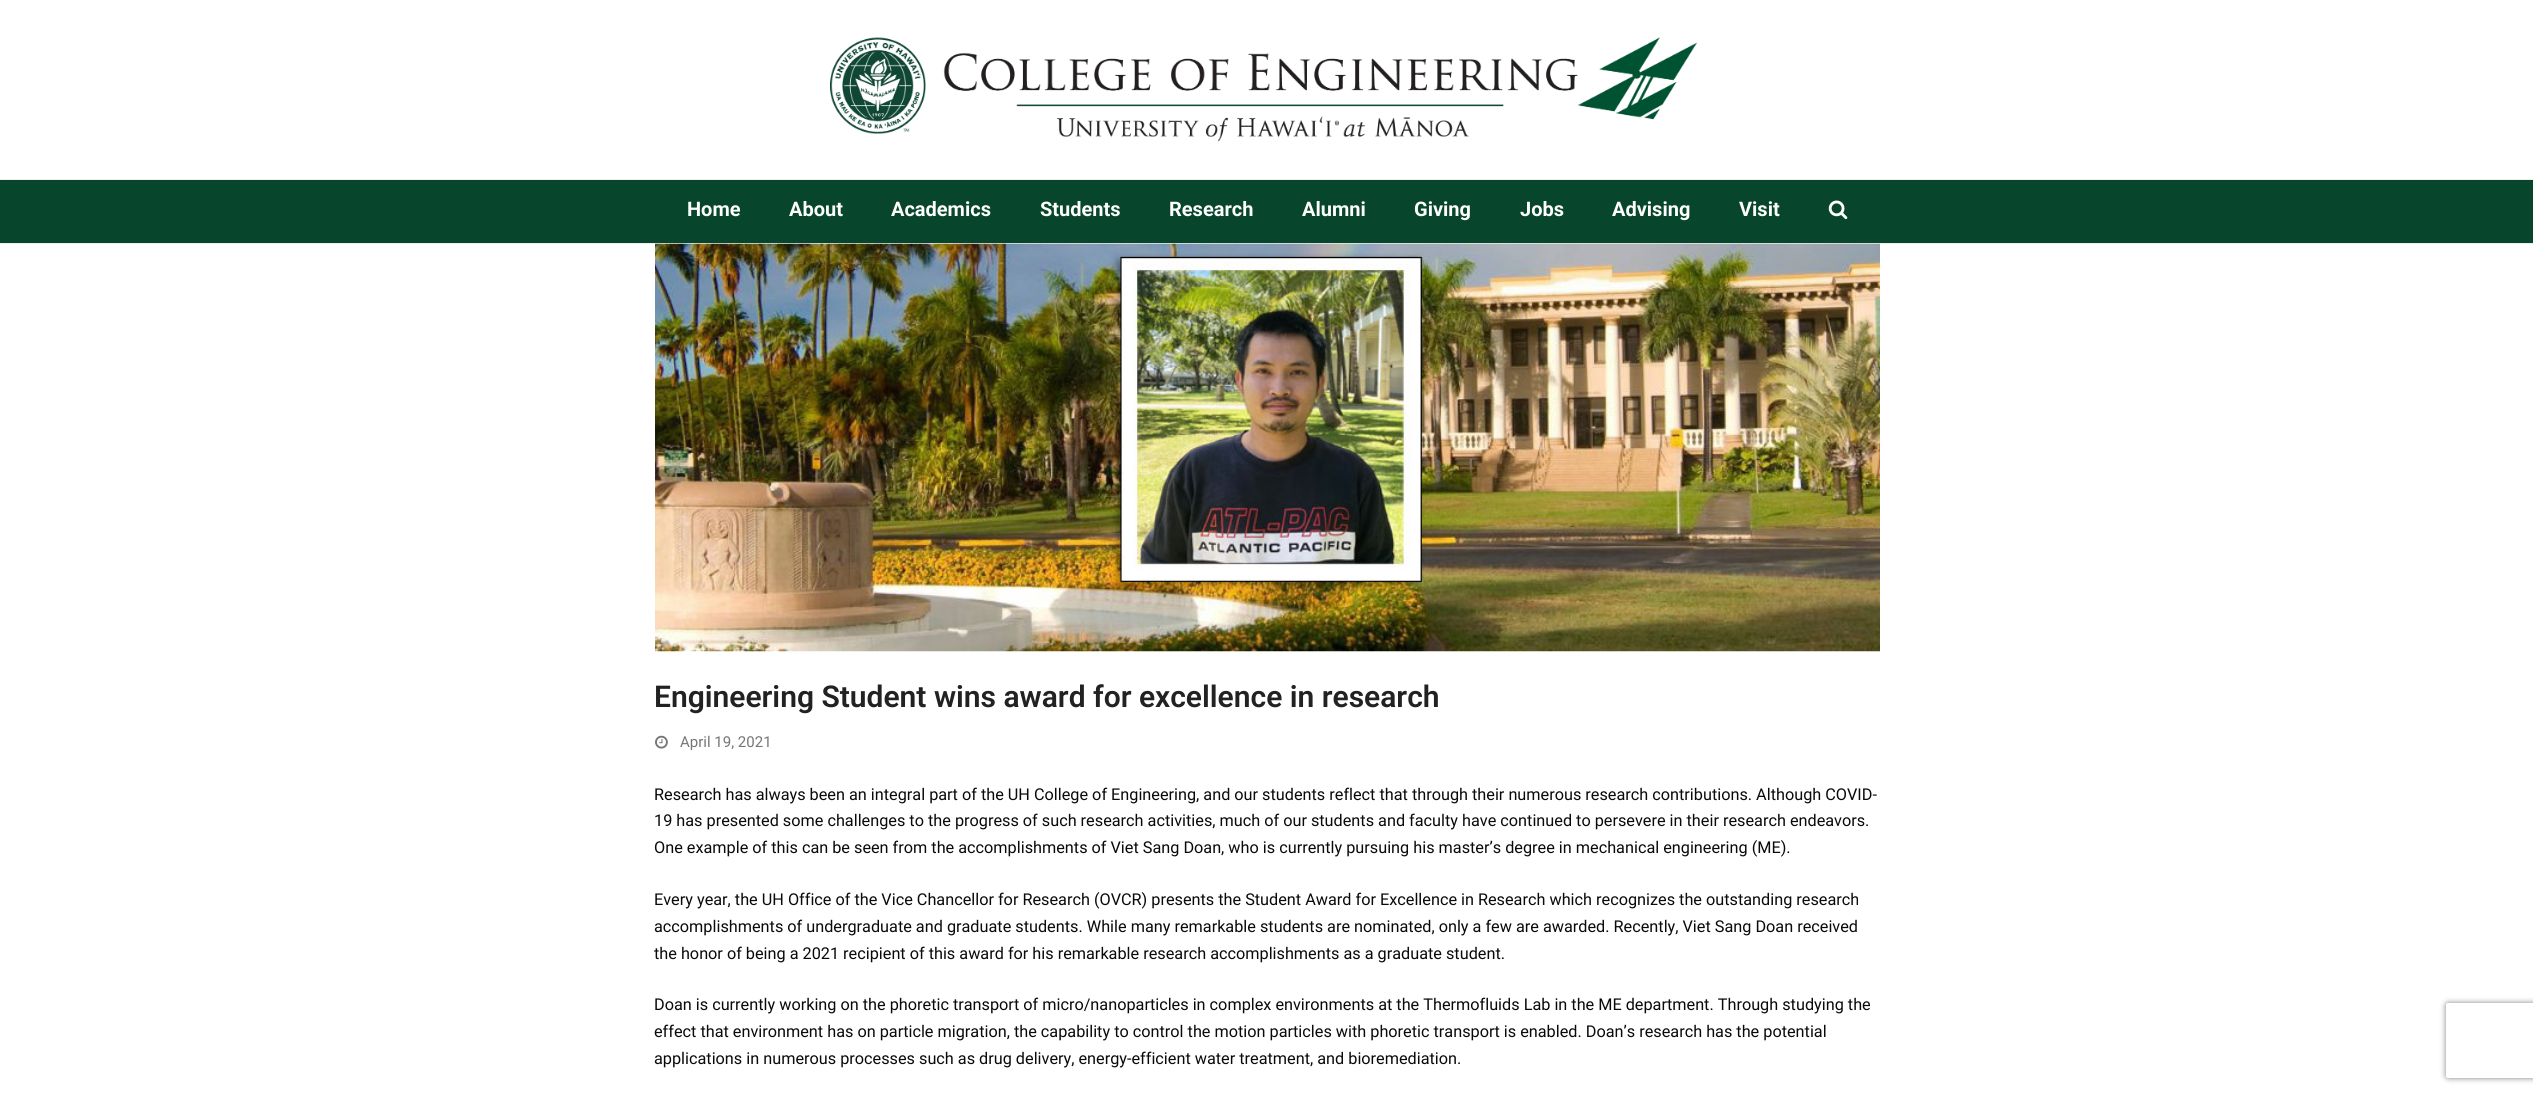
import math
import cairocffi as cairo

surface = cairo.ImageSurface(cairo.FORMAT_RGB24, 2533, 1094)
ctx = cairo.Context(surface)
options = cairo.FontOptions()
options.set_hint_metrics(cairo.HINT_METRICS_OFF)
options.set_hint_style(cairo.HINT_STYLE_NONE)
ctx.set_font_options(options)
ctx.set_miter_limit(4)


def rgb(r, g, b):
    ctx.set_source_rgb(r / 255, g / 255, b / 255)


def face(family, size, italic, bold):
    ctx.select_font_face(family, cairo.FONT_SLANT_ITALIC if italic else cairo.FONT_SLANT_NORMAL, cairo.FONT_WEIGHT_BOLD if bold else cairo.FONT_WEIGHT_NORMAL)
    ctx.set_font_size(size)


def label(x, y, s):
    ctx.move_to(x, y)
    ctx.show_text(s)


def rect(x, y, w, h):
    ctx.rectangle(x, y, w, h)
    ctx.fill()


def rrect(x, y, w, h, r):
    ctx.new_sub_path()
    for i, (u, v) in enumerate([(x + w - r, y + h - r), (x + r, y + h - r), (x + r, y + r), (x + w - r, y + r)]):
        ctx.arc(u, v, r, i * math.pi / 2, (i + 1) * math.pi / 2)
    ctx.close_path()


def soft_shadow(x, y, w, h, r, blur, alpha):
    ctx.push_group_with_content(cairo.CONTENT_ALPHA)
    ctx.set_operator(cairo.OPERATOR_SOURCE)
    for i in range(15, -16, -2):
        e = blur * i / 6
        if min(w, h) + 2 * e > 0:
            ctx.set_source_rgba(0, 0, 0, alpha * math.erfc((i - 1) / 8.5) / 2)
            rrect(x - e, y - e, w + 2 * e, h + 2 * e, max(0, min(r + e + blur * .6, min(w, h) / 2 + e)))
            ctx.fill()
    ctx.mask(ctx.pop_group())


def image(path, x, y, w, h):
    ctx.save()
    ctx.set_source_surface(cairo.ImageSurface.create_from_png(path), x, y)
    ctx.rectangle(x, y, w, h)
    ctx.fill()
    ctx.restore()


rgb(255, 255, 255)
ctx.paint()
image('image0.png', 830, 37, 867, 105)
rgb(7, 70, 44)
rect(0, 180, 2533, 63)
rgb(238, 238, 238)
rect(0, 179, 2533, 1)
rect(0, 243, 2533, 1)
face('Roboto', 20, 0, 1)
rgb(255, 255, 255)
label(687, 216, 'Home')
label(789, 216, 'About')
label(891, 216, 'Academics')
label(1040, 216, 'Students')
label(1169, 216, 'Research')
label(1302, 216, 'Alumni')
label(1414, 216, 'Giving')
label(1520, 216, 'Jobs')
label(1612, 216, 'Advising')
label(1739, 216, 'Visit')
image('image1.png', 1828, 200, 20, 20)
image('image2.png', 655, 243, 1225, 409)
face('Roboto SemiBold', 30, 0, 0)
rgb(34, 34, 34)
label(654, 707, 'Engineering Student wins award for excellence in research')
image('image3.png', 655, 735, 13, 14)
face('Roboto', 15, 0, 0)
rgb(117, 117, 117)
label(680, 747, 'April 19, 2021')
face('Roboto', 16.25, 0, 0)
rgb(10, 10, 10)
label(654, 800, 'Research has always been an integral part of the UH College of Engineering, and our students reflect that through their numerous research contributions. Although COVID-')
label(654, 826, '19 has presented some challenges to the progress of such research activities, much of our students and faculty have continued to persevere in their research endeavors.')
label(654, 853, 'One example of this can be seen from the accomplishments of Viet Sang Doan, who is currently pursuing his master’s degree in mechanical engineering (ME).')
label(654, 905, 'Every year, the UH Office of the Vice Chancellor for Research (OVCR) presents the Student Award for Excellence in Research which recognizes the outstanding research')
label(654, 932, 'accomplishments of undergraduate and graduate students. While many remarkable students are nominated, only a few are awarded. Recently, Viet Sang Doan received')
label(654, 959, 'the honor of being a 2021 recipient of this award for his remarkable research accomplishments as a graduate student.')
label(654, 1010, 'Doan is currently working on the phoretic transport of micro/nanoparticles in complex environments at the Thermofluids Lab in the ME department. Through studying the')
label(654, 1037, 'effect that environment has on particle migration, the capability to control the motion particles with phoretic transport is enabled. Doan’s research has the potential')
label(654, 1064, 'applications in numerous processes such as drug delivery, energy-efficient water treatment, and bioremediation.')
ctx.save()
ctx.set_fill_rule(cairo.FILL_RULE_EVEN_ODD)
ctx.new_path()
ctx.move_to(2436, 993)
ctx.line_to(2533, 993)
ctx.line_to(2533, 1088)
ctx.line_to(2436, 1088)
ctx.close_path()
ctx.move_to(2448.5, 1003)
ctx.line_to(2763.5, 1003)
ctx.curve_to(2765, 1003, 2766, 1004, 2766, 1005.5)
ctx.line_to(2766, 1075.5)
ctx.curve_to(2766, 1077, 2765, 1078, 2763.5, 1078)
ctx.line_to(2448.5, 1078)
ctx.curve_to(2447, 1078, 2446, 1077, 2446, 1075.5)
ctx.line_to(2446, 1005.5)
ctx.curve_to(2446, 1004, 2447, 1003, 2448.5, 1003)
ctx.close_path()
ctx.clip()
rgb(128, 128, 128)
soft_shadow(2446, 1003, 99, 75, 2.5, 3, 1)
ctx.restore()
surface.write_to_png('render.png')
